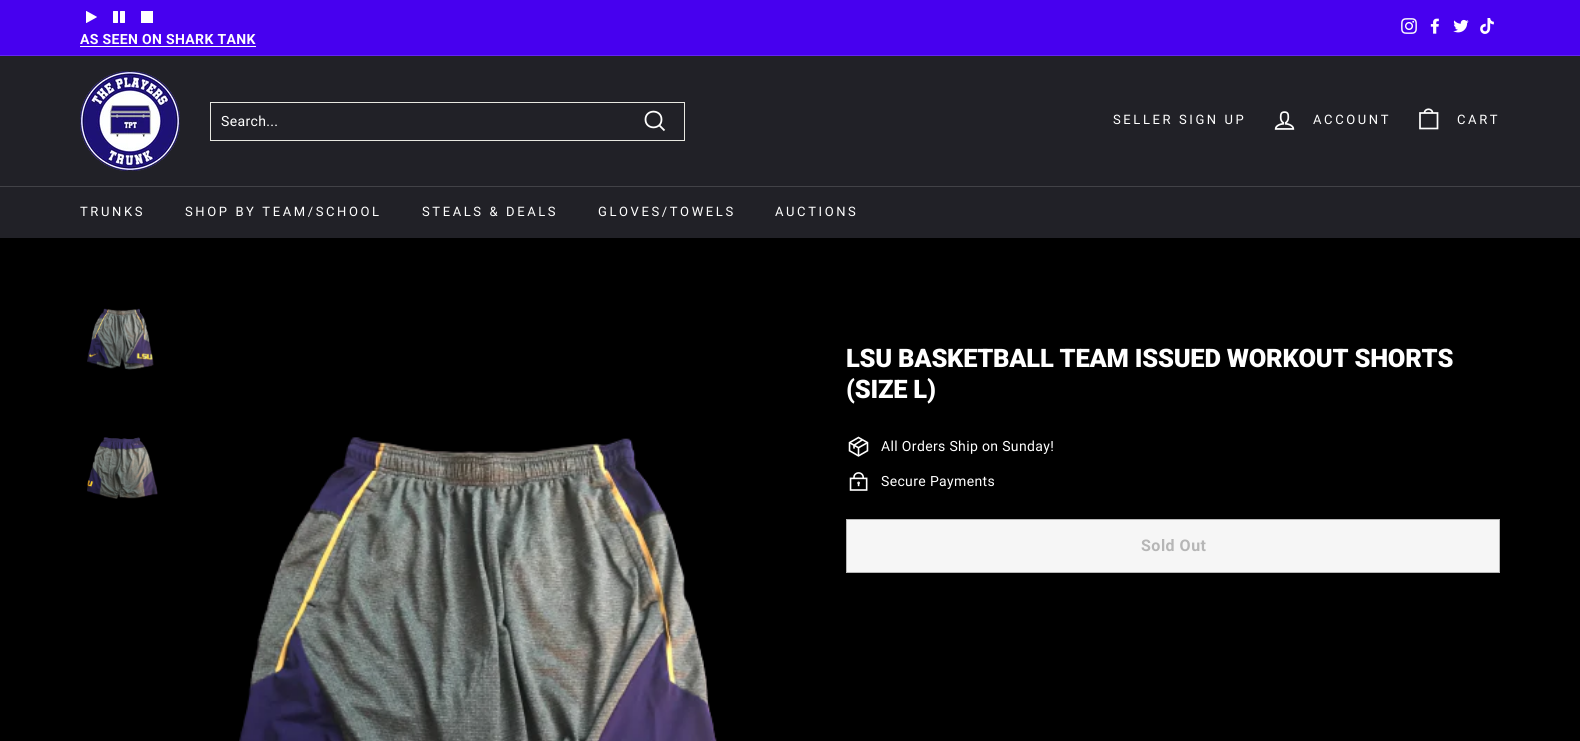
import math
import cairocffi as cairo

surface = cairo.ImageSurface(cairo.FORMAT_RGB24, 1580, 741)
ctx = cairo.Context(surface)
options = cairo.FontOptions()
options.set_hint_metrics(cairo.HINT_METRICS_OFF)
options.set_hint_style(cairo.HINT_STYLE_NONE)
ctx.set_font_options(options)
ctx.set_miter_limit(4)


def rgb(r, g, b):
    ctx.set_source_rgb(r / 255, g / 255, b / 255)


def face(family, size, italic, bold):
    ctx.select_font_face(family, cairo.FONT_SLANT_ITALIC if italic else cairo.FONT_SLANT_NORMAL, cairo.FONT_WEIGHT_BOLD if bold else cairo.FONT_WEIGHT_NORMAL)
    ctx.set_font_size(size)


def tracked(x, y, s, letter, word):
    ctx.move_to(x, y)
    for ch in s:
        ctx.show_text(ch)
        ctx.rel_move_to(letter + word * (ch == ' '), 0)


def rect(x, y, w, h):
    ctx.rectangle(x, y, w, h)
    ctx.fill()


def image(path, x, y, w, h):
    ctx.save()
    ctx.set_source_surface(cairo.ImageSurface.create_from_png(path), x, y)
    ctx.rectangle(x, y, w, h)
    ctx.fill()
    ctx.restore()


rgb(0, 0, 0)
ctx.paint()
rgb(71, 0, 239)
rect(0, 0, 1580, 55)
image('image0.png', 1401, 18, 16, 16)
image('image1.png', 1430, 18, 9, 16)
image('image2.png', 1453, 19, 16, 14)
image('image3.png', 1480, 18, 14, 16)
image('image4.png', 86, 11, 11, 12)
image('image5.png', 113, 11, 12, 12)
rgb(255, 255, 255)
rect(141, 11, 12, 12)
face('Roboto', 14, 0, 1)
tracked(80, 44, 'AS SEEN ON SHARK TANK', 0.35, 0)
rect(80, 46, 176, 1)
rgb(99, 38, 241)
rect(0, 55, 1580, 1)
rgb(33, 33, 39)
rect(0, 56, 1580, 130)
image('image6.png', 80, 71, 100, 100)
ctx.rectangle(210.5, 102.5, 474, 38)
rgb(232, 232, 225)
ctx.set_line_width(1)
ctx.stroke()
face('Roboto', 14, 0, 0)
rgb(255, 255, 255)
tracked(221, 126, 'Search...', 0.35, 0)
ctx.new_path()
ctx.move_to(661.5, 119.5)
ctx.curve_to(661.5, 130, 645.5, 130, 645.5, 119.5)
ctx.curve_to(645.5, 109, 661.5, 109, 661.5, 119.5)
ctx.close_path()
ctx.move_to(664.5, 130.5)
ctx.line_to(659.5, 125.5)
ctx.set_line_width(1.8)
ctx.stroke()
face('Roboto', 13, 0, 0)
tracked(1113, 124, 'SELLER SIGN UP', 2.6, 0)
image('image7.png', 1274, 111, 21, 19)
tracked(1313, 124, 'ACCOUNT', 2.6, 0)
ctx.new_path()
ctx.move_to(1424.5, 113)
ctx.curve_to(1424.5, 108, 1432.5, 108, 1432.5, 113)
ctx.move_to(1420, 113)
ctx.line_to(1437.5, 113)
ctx.line_to(1437.5, 128.5)
ctx.line_to(1420, 128.5)
ctx.close_path()
ctx.set_line_width(1.7)
ctx.stroke()
tracked(1457, 124, 'CART', 2.6, 0)
rgb(66, 66, 71)
rect(0, 186, 1580, 1)
rgb(33, 33, 39)
rect(0, 187, 1580, 51)
rgb(255, 255, 255)
tracked(80, 216, 'TRUNKS', 2.6, 0)
tracked(185, 216, 'SHOP BY TEAM/SCHOOL', 2.6, 0)
tracked(422, 216, 'STEALS & DEALS', 2.6, 0)
tracked(598, 216, 'GLOVES/TOWELS', 2.6, 0)
tracked(775, 216, 'AUCTIONS', 2.6, 0)
image('image8.png', 87, 308, 67, 62)
image('image9.png', 87, 437, 71, 62)
image('image10.png', 239, 437, 478, 304)
face('Roboto Black', 25.5, 0, 0)
tracked(846, 367, 'LSU BASKETBALL TEAM ISSUED WORKOUT SHORTS', -0.25, 0)
tracked(846, 398, '(SIZE L)', -0.25, 0)
image('image11.png', 848, 436, 21, 21)
face('Roboto', 14, 0, 0)
tracked(881, 451, 'All Orders Ship on Sunday!', 0.35, 0)
image('image12.png', 849, 472, 19, 19)
tracked(881, 486, 'Secure Payments', 0.35, 0)
rgb(246, 246, 246)
ctx.rectangle(846.5, 519.5, 653, 53)
ctx.fill_preserve()
rgb(182, 182, 182)
ctx.set_line_width(1)
ctx.stroke()
face('Roboto', 16, 0, 1)
tracked(1141, 551, 'Sold Out', 0.5, 0)
surface.write_to_png('render.png')
